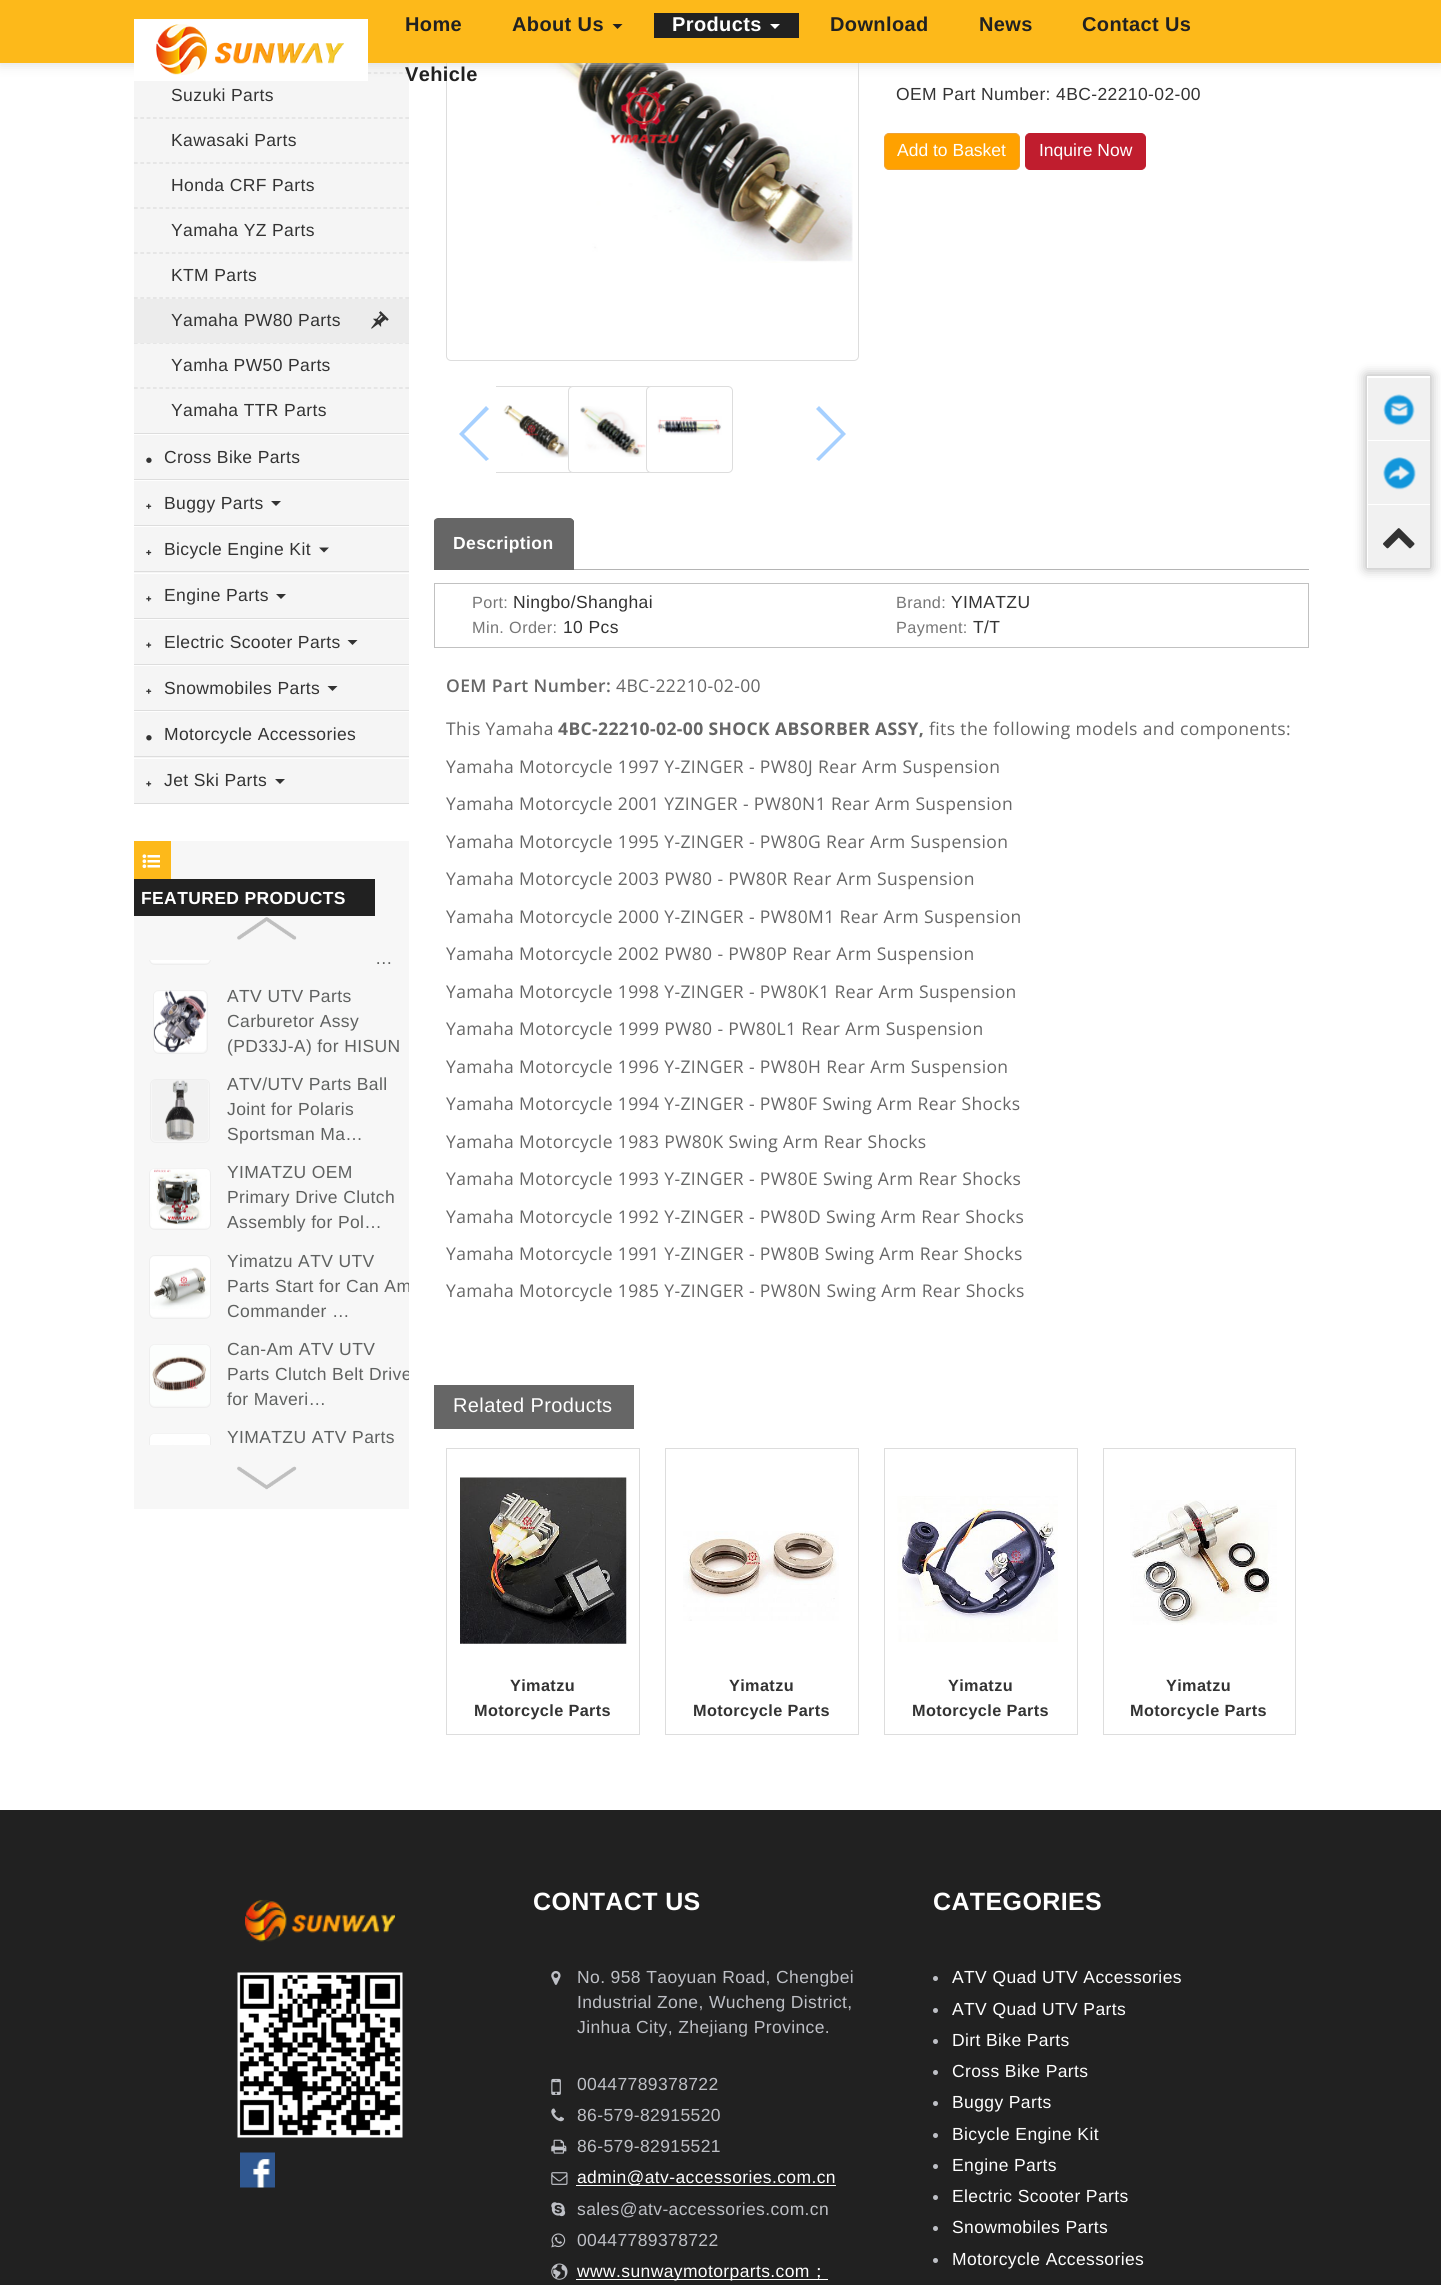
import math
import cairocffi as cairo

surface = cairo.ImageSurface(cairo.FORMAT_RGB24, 1441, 2285)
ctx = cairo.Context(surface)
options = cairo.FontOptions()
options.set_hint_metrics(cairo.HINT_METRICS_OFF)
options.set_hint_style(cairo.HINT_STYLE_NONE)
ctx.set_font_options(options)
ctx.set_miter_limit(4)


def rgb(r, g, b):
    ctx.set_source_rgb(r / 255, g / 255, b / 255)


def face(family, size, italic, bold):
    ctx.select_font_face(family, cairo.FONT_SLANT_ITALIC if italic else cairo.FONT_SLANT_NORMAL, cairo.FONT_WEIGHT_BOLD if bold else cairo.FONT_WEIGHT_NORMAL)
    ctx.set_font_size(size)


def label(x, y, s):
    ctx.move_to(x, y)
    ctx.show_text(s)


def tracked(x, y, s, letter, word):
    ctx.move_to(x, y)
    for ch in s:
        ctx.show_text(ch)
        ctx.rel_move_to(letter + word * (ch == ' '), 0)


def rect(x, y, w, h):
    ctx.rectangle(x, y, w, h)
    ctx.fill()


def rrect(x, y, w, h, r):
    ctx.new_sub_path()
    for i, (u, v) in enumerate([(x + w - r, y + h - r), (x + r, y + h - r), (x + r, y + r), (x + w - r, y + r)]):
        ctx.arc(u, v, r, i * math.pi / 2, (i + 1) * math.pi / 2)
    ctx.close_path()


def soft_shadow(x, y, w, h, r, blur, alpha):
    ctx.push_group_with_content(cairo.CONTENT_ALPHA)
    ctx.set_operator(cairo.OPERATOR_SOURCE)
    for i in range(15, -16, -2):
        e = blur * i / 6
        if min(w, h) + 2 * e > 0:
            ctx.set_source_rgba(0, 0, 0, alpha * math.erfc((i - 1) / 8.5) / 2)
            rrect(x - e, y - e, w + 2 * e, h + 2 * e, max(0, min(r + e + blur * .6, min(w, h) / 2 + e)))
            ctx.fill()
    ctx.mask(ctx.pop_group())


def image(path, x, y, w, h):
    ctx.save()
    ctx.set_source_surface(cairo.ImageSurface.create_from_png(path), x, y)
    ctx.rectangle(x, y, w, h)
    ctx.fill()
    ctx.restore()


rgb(255, 255, 255)
ctx.paint()
rgb(245, 245, 245)
rect(134, 63, 275, 740)
ctx.new_path()
ctx.move_to(134, 73)
ctx.line_to(409, 73)
rgb(221, 221, 221)
ctx.set_line_width(1.2)
ctx.set_dash([3.75, 2.56])
ctx.stroke()
rrect(446.5, -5.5, 412, 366, 4.5)
ctx.set_line_width(1)
ctx.set_dash([])
ctx.stroke()
image('image18.png', 495, 63, 358, 200)
rgb(221, 221, 221)
soft_shadow(0, 1, 1441, 63, 0, 6, 1)
rgb(253, 185, 26)
rect(0, 0, 1441, 63)
rgb(255, 255, 255)
rect(134, 19, 234, 62)
image('image0.png', 156, 24, 188, 51)
face('Liberation Sans', 20, 0, 1)
rgb(33, 33, 33)
tracked(405, 31, 'Home', 0.38, 0)
tracked(512, 31, 'About Us', 0.38, 0)
ctx.new_path()
ctx.move_to(612.5, 24)
ctx.line_to(622.5, 24)
ctx.line_to(617.5, 29)
ctx.close_path()
ctx.fill()
rect(654, 13, 145, 25)
rgb(255, 255, 255)
tracked(672, 31, 'Products', 0.38, 0)
ctx.new_path()
ctx.move_to(770, 24)
ctx.line_to(780, 24)
ctx.line_to(775, 29)
ctx.close_path()
ctx.fill()
rgb(33, 33, 33)
tracked(830, 31, 'Download', 0.38, 0)
tracked(979, 31, 'News', 0.38, 0)
tracked(1082, 31, 'Contact Us', 0.38, 0)
tracked(405, 81, 'Vehicle', 0.38, 0)
rgb(221, 221, 221)
rect(134, 433, 275, 1)
face('Liberation Sans', 17.5, 0, 0)
rgb(51, 51, 51)
tracked(171, 101, 'Suzuki Parts', 0.38, 0)
ctx.new_path()
ctx.move_to(134, 118)
ctx.line_to(409, 118)
rgb(221, 221, 221)
ctx.set_line_width(1.2)
ctx.set_dash([3.75, 2.56])
ctx.stroke()
rgb(51, 51, 51)
tracked(171, 146, 'Kawasaki Parts', 0.38, 0)
ctx.new_path()
ctx.move_to(134, 163)
ctx.line_to(409, 163)
rgb(221, 221, 221)
ctx.stroke()
rgb(51, 51, 51)
tracked(171, 191, 'Honda CRF Parts', 0.38, 0)
ctx.new_path()
ctx.move_to(134, 208)
ctx.line_to(409, 208)
rgb(221, 221, 221)
ctx.stroke()
rgb(51, 51, 51)
tracked(171, 236, 'Yamaha YZ Parts', 0.38, 0)
ctx.new_path()
ctx.move_to(134, 253)
ctx.line_to(409, 253)
rgb(221, 221, 221)
ctx.stroke()
rgb(51, 51, 51)
tracked(171, 281, 'KTM Parts', 0.38, 0)
ctx.new_path()
ctx.move_to(134, 298)
ctx.line_to(409, 298)
rgb(221, 221, 221)
ctx.stroke()
ctx.new_path()
ctx.move_to(134, 343)
ctx.line_to(409, 343)
ctx.stroke()
rgb(236, 236, 236)
rect(134, 299, 275, 44)
rgb(51, 51, 51)
tracked(171, 326, 'Yamaha PW80 Parts', 0.38, 0)
image('image1.png', 371, 311, 18, 18)
tracked(171, 371, 'Yamha PW50 Parts', 0.38, 0)
ctx.new_path()
ctx.move_to(134, 388)
ctx.line_to(409, 388)
rgb(221, 221, 221)
ctx.stroke()
rgb(51, 51, 51)
tracked(171, 416, 'Yamaha TTR Parts', 0.38, 0)
rgb(254, 254, 254)
rect(134, 434, 275, 1)
rgb(221, 221, 221)
rect(134, 479, 275, 1)
image('image2.png', 146, 457, 6, 6)
rgb(51, 51, 51)
tracked(164, 463, 'Cross Bike Parts', 0.38, 0)
rgb(254, 254, 254)
rect(134, 480, 275, 1)
rgb(221, 221, 221)
rect(134, 525, 275, 1)
image('image3.png', 146, 503, 6, 6)
rgb(51, 51, 51)
tracked(164, 509, 'Buggy Parts', 0.38, 0)
ctx.new_path()
ctx.move_to(271, 501)
ctx.line_to(281, 501)
ctx.line_to(276, 506)
ctx.close_path()
ctx.fill()
rgb(254, 254, 254)
rect(134, 526, 275, 1)
rgb(221, 221, 221)
rect(134, 571, 275, 1)
image('image4.png', 146, 550, 6, 5)
rgb(51, 51, 51)
tracked(164, 555, 'Bicycle Engine Kit', 0.38, 0)
ctx.new_path()
ctx.move_to(319, 547.5)
ctx.line_to(329, 547.5)
ctx.line_to(324, 552.5)
ctx.close_path()
ctx.fill()
rgb(254, 254, 254)
rect(134, 573, 275, 1)
rgb(221, 221, 221)
rect(134, 618, 275, 1)
image('image5.png', 146, 596, 6, 6)
rgb(51, 51, 51)
tracked(164, 601, 'Engine Parts', 0.38, 0)
ctx.new_path()
ctx.move_to(276, 594)
ctx.line_to(286, 594)
ctx.line_to(281, 599)
ctx.close_path()
ctx.fill()
rgb(254, 254, 254)
rect(134, 619, 275, 1)
rgb(221, 221, 221)
rect(134, 664, 275, 1)
image('image6.png', 146, 642, 6, 6)
rgb(51, 51, 51)
tracked(164, 648, 'Electric Scooter Parts', 0.38, 0)
ctx.new_path()
ctx.move_to(347.5, 640)
ctx.line_to(357.5, 640)
ctx.line_to(352.5, 645)
ctx.close_path()
ctx.fill()
rgb(254, 254, 254)
rect(134, 665, 275, 1)
rgb(221, 221, 221)
rect(134, 710, 275, 1)
image('image3.png', 146, 688, 6, 6)
rgb(51, 51, 51)
tracked(164, 694, 'Snowmobiles Parts', 0.38, 0)
ctx.new_path()
ctx.move_to(327.5, 686)
ctx.line_to(337.5, 686)
ctx.line_to(332.5, 691)
ctx.close_path()
ctx.fill()
rgb(254, 254, 254)
rect(134, 711, 275, 1)
rgb(221, 221, 221)
rect(134, 756, 275, 1)
image('image7.png', 146, 735, 6, 6)
rgb(51, 51, 51)
tracked(164, 740, 'Motorcycle Accessories', 0.38, 0)
rgb(254, 254, 254)
rect(134, 758, 275, 1)
rgb(221, 221, 221)
rect(134, 803, 275, 1)
image('image5.png', 146, 781, 6, 6)
rgb(51, 51, 51)
tracked(164, 786, 'Jet Ski Parts', 0.38, 0)
ctx.new_path()
ctx.move_to(275, 779)
ctx.line_to(285, 779)
ctx.line_to(280, 784)
ctx.close_path()
ctx.fill()
rgb(247, 247, 247)
rect(134, 841, 275, 668)
rgb(253, 185, 26)
rect(134, 841, 37, 38)
image('image8.png', 142, 854, 18, 15)
rgb(33, 33, 33)
rect(134, 879, 241, 37)
face('Liberation Sans', 17.5, 0, 1)
rgb(255, 255, 255)
tracked(141, 904, 'FEATURED PRODUCTS', 0.38, 0)
image('image9.png', 237, 917, 60, 23)
ctx.save()
ctx.rectangle(134, 960, 275, 485)
ctx.clip()
rrect(149.5, 903.5, 61, 61, 5.5)
rgb(238, 238, 238)
ctx.set_line_width(1)
ctx.set_dash([])
ctx.stroke()
ctx.restore()
image('image10.png', 150, 960, 60, 3)
face('Liberation Sans', 17.5, 0, 0)
rgb(95, 97, 96)
tracked(375, 964, '…', 0.38, 0)
rrect(153.5, 990.5, 54, 63, 5.5)
rgb(238, 238, 238)
ctx.set_line_width(1)
ctx.set_dash([])
ctx.stroke()
image('image11.png', 153, 990, 54, 63)
rgb(95, 97, 96)
tracked(227, 1002, 'ATV UTV Parts', 0.38, 0)
tracked(227, 1027, 'Carburetor Assy', 0.38, 0)
tracked(227, 1052, '(PD33J-A) for HISUN', 0.38, 0)
rrect(150.5, 1079.5, 59, 63, 5.5)
rgb(238, 238, 238)
ctx.stroke()
image('image12.png', 152, 1080, 56, 61)
rgb(95, 97, 96)
tracked(227, 1090, 'ATV/UTV Parts Ball', 0.38, 0)
tracked(227, 1115, 'Joint for Polaris', 0.38, 0)
tracked(227, 1140, 'Sportsman Ma…', 0.38, 0)
rrect(149.5, 1168.5, 61, 61, 5.5)
rgb(238, 238, 238)
ctx.stroke()
image('image13.png', 150, 1168, 60, 60)
rgb(95, 97, 96)
tracked(227, 1178, 'YIMATZU OEM', 0.38, 0)
tracked(227, 1203, 'Primary Drive Clutch', 0.38, 0)
tracked(227, 1228, 'Assembly for Pol…', 0.38, 0)
rrect(149.5, 1255.5, 61, 63, 5.5)
rgb(238, 238, 238)
ctx.stroke()
image('image14.png', 150, 1256, 60, 61)
rgb(95, 97, 96)
tracked(227, 1267, 'Yimatzu ATV UTV', 0.38, 0)
ctx.save()
ctx.rectangle(134, 960, 275, 485)
ctx.clip()
tracked(227, 1292, 'Parts Start for Can Am', 0.38, 0)
ctx.restore()
tracked(227, 1317, 'Commander …', 0.38, 0)
rrect(149.5, 1344.5, 61, 63, 5.5)
rgb(238, 238, 238)
ctx.stroke()
image('image15.png', 150, 1344, 60, 62)
rgb(95, 97, 96)
tracked(227, 1355, 'Can-Am ATV UTV', 0.38, 0)
ctx.save()
ctx.rectangle(134, 960, 275, 485)
ctx.clip()
tracked(227, 1380, 'Parts Clutch Belt Drive', 0.38, 0)
ctx.restore()
tracked(227, 1405, 'for Maveri…', 0.38, 0)
ctx.save()
ctx.rectangle(134, 960, 275, 485)
ctx.clip()
rrect(149.5, 1433.5, 61, 61, 5.5)
rgb(238, 238, 238)
ctx.stroke()
ctx.restore()
image('image16.png', 150, 1433, 60, 12)
tracked(227, 1443, 'YIMATZU ATV Parts', 0.38, 0)
image('image17.png', 237, 1466, 60, 24)
rgb(166, 208, 255)
ctx.new_path()
ctx.move_to(459, 434)
ctx.line_to(486, 406)
ctx.line_to(489, 409)
ctx.line_to(464, 434)
ctx.line_to(489, 459)
ctx.line_to(486, 461)
ctx.close_path()
ctx.fill()
ctx.save()
ctx.rectangle(496, 386, 313, 94)
ctx.clip()
rrect(490.5, 386.5, 85, 86, 4.5)
rgb(221, 221, 221)
ctx.stroke()
ctx.restore()
image('image19.png', 503, 405, 65, 53)
rgb(255, 255, 255)
rrect(568.5, 386.5, 85, 86, 4.5)
ctx.fill_preserve()
rgb(221, 221, 221)
ctx.stroke()
image('image20.png', 580, 406, 66, 51)
rgb(255, 255, 255)
rrect(646.5, 386.5, 86, 86, 4.5)
ctx.fill_preserve()
rgb(221, 221, 221)
ctx.stroke()
image('image21.png', 657, 416, 65, 19)
rgb(166, 208, 255)
ctx.new_path()
ctx.move_to(846, 434)
ctx.line_to(819, 461)
ctx.line_to(816, 459)
ctx.line_to(841, 434)
ctx.line_to(816, 409)
ctx.line_to(819, 406)
ctx.close_path()
ctx.fill()
rgb(51, 51, 51)
tracked(896, 100, 'OEM Part Number: 4BC-22210-02-00', 0.38, 0)
rgb(255, 161, 0)
rrect(884.5, 133.5, 135, 36, 4.5)
ctx.fill_preserve()
rgb(238, 162, 54)
ctx.stroke()
rgb(255, 255, 255)
label(897, 156, 'Add to Basket')
rgb(192, 29, 46)
rrect(1025.5, 133.5, 120, 36, 4.5)
ctx.fill_preserve()
ctx.stroke()
rgb(255, 255, 255)
label(1039, 156, 'Inquire Now')
rgb(180, 180, 180)
rect(574, 569, 735, 1)
rgb(102, 102, 102)
ctx.new_path()
ctx.move_to(439, 518)
ctx.line_to(569, 518)
ctx.curve_to(572, 518, 574, 520, 574, 523)
ctx.line_to(574, 570)
ctx.line_to(434, 570)
ctx.line_to(434, 523)
ctx.curve_to(434, 520, 436, 518, 439, 518)
ctx.close_path()
ctx.fill()
ctx.new_path()
ctx.move_to(439, 518)
ctx.line_to(435, 519)
ctx.line_to(436, 520)
ctx.line_to(439, 519)
ctx.line_to(569, 519)
ctx.curve_to(570, 519, 571, 519, 571, 520)
ctx.line_to(572, 519)
ctx.line_to(569, 518)
ctx.close_path()
ctx.fill()
ctx.new_path()
ctx.move_to(572, 519)
ctx.line_to(574, 521)
ctx.line_to(574, 570)
ctx.line_to(572, 568)
ctx.curve_to(572, 562, 573, 522, 571, 520)
ctx.close_path()
ctx.fill()
ctx.new_path()
ctx.move_to(435, 519)
ctx.line_to(434, 521)
ctx.line_to(434, 570)
ctx.line_to(435, 569)
ctx.line_to(435, 521)
ctx.line_to(436, 520)
ctx.close_path()
ctx.fill()
face('Liberation Sans', 17.5, 0, 1)
rgb(255, 255, 255)
tracked(453, 549, 'Description', 0.38, 0)
ctx.rectangle(434.5, 583.5, 874, 64)
rgb(193, 193, 193)
ctx.stroke()
face('Liberation Sans', 16.25, 0, 0)
rgb(119, 119, 119)
tracked(472, 608, 'Port:', 0.38, 0)
face('Liberation Sans', 17.5, 0, 0)
rgb(51, 51, 51)
tracked(513, 608, 'Ningbo/Shanghai', 0.38, 0)
face('Liberation Sans', 16.25, 0, 0)
rgb(119, 119, 119)
tracked(896, 608, 'Brand:', 0.38, 0)
face('Liberation Sans', 17.5, 0, 0)
rgb(51, 51, 51)
tracked(951, 608, 'YIMATZU', 0.38, 0)
face('Liberation Sans', 16.25, 0, 0)
rgb(119, 119, 119)
tracked(472, 633, 'Min. Order:', 0.38, 0)
face('Liberation Sans', 17.5, 0, 0)
rgb(51, 51, 51)
tracked(563, 633, '10 Pcs', 0.38, 0)
face('Liberation Sans', 16.25, 0, 0)
rgb(119, 119, 119)
tracked(896, 633, 'Payment:', 0.38, 0)
face('Liberation Sans', 17.5, 0, 0)
rgb(51, 51, 51)
tracked(973, 633, 'T/T', 0.38, 0)
face('Open Sans SemiBold', 17.5, 0, 0)
rgb(102, 102, 102)
tracked(446, 692, 'OEM Part Number:', 0.38, 0)
face('Open Sans', 17.5, 0, 0)
tracked(616, 692, '4BC-22210-02-00', 0.38, 0)
tracked(446, 735, 'This Yamaha', 0.38, 0)
face('Open Sans', 17.5, 0, 1)
tracked(558, 735, '4BC-22210-02-00 SHOCK ABSORBER ASSY,', 0.38, 0)
face('Open Sans', 17.5, 0, 0)
tracked(929, 735, 'fits the following models and components:', 0.38, 0)
tracked(446, 773, 'Yamaha Motorcycle 1997 Y-ZINGER - PW80J Rear Arm Suspension', 0.38, 0)
tracked(446, 810, 'Yamaha Motorcycle 2001 YZINGER - PW80N1 Rear Arm Suspension', 0.38, 0)
tracked(446, 848, 'Yamaha Motorcycle 1995 Y-ZINGER - PW80G Rear Arm Suspension', 0.38, 0)
tracked(446, 885, 'Yamaha Motorcycle 2003 PW80 - PW80R Rear Arm Suspension', 0.38, 0)
tracked(446, 923, 'Yamaha Motorcycle 2000 Y-ZINGER - PW80M1 Rear Arm Suspension', 0.38, 0)
tracked(446, 960, 'Yamaha Motorcycle 2002 PW80 - PW80P Rear Arm Suspension', 0.38, 0)
tracked(446, 998, 'Yamaha Motorcycle 1998 Y-ZINGER - PW80K1 Rear Arm Suspension', 0.38, 0)
tracked(446, 1035, 'Yamaha Motorcycle 1999 PW80 - PW80L1 Rear Arm Suspension', 0.38, 0)
tracked(446, 1073, 'Yamaha Motorcycle 1996 Y-ZINGER - PW80H Rear Arm Suspension', 0.38, 0)
tracked(446, 1110, 'Yamaha Motorcycle 1994 Y-ZINGER - PW80F Swing Arm Rear Shocks', 0.38, 0)
tracked(446, 1148, 'Yamaha Motorcycle 1983 PW80K Swing Arm Rear Shocks', 0.38, 0)
tracked(446, 1185, 'Yamaha Motorcycle 1993 Y-ZINGER - PW80E Swing Arm Rear Shocks', 0.38, 0)
tracked(446, 1223, 'Yamaha Motorcycle 1992 Y-ZINGER - PW80D Swing Arm Rear Shocks', 0.38, 0)
tracked(446, 1260, 'Yamaha Motorcycle 1991 Y-ZINGER - PW80B Swing Arm Rear Shocks', 0.38, 0)
tracked(446, 1297, 'Yamaha Motorcycle 1985 Y-ZINGER - PW80N Swing Arm Rear Shocks', 0.38, 0)
rect(434, 1385, 200, 44)
face('Liberation Sans', 20, 0, 0)
rgb(255, 255, 255)
tracked(453, 1412, 'Related Products', 0.38, 0)
ctx.rectangle(446.5, 1448.5, 193, 286)
rgb(221, 221, 221)
ctx.stroke()
image('image22.png', 460, 1477, 167, 167)
face('Liberation Sans', 16.25, 0, 1)
rgb(51, 51, 51)
tracked(510, 1691, 'Yimatzu', 0.38, 0)
tracked(474, 1716, 'Motorcycle Parts', 0.38, 0)
ctx.rectangle(665.5, 1448.5, 193, 286)
rgb(221, 221, 221)
ctx.stroke()
image('image23.png', 683, 1531, 156, 90)
rgb(51, 51, 51)
tracked(729, 1691, 'Yimatzu', 0.38, 0)
tracked(693, 1716, 'Motorcycle Parts', 0.38, 0)
ctx.rectangle(884.5, 1448.5, 193, 286)
rgb(221, 221, 221)
ctx.stroke()
image('image24.png', 897, 1496, 161, 146)
rgb(51, 51, 51)
tracked(948, 1691, 'Yimatzu', 0.38, 0)
tracked(912, 1716, 'Motorcycle Parts', 0.38, 0)
ctx.rectangle(1103.5, 1448.5, 192, 286)
rgb(221, 221, 221)
ctx.stroke()
image('image25.png', 1130, 1500, 147, 125)
rgb(51, 51, 51)
tracked(1166, 1691, 'Yimatzu', 0.38, 0)
tracked(1130, 1716, 'Motorcycle Parts', 0.38, 0)
rgb(33, 33, 33)
rect(0, 1810, 1441, 475)
rgb(0, 0, 0)
soft_shadow(1366, 375, 65, 194, 0, 6, 0.3)
rgb(255, 255, 255)
ctx.rectangle(1366.5, 375.5, 64, 193)
ctx.fill_preserve()
rgb(214, 214, 214)
ctx.stroke()
rgb(241, 241, 241)
rect(1368, 378, 62, 62)
image('image26.png', 1383, 394, 32, 32)
rect(1368, 441, 62, 63)
image('image27.png', 1383, 457, 33, 33)
rect(1368, 505, 62, 63)
image('image28.png', 1383, 528, 32, 21)
image('image29.png', 245, 1899, 150, 43)
image('image30.png', 237, 1972, 166, 166)
image('image31.png', 240, 2152, 35, 36)
face('Liberation Sans', 25, 0, 1)
rgb(255, 255, 255)
tracked(533, 1910, 'CONTACT US', 0.38, 0)
image('image32.png', 551, 1971, 10, 14)
face('Liberation Sans', 17.5, 0, 0)
rgb(190, 192, 198)
tracked(577, 1983, 'No. 958 Taoyuan Road, Chengbei', 0.38, 0)
tracked(577, 2008, 'Industrial Zone, Wucheng District,', 0.38, 0)
tracked(577, 2033, 'Jinhua City, Zhejiang Province.', 0.38, 0)
image('image33.png', 551, 2078, 10, 17)
tracked(577, 2090, '00447789378722', 0.38, 0)
image('image34.png', 551, 2108, 13, 14)
tracked(577, 2121, '86-579-82915520', 0.38, 0)
image('image35.png', 551, 2139, 16, 15)
tracked(577, 2152, '86-579-82915521', 0.38, 0)
image('image36.png', 551, 2172, 17, 13)
rgb(255, 255, 255)
rect(576, 2185, 260, 1)
tracked(577, 2183, 'admin@atv-accessories.com.cn', 0.38, 0)
image('image37.png', 551, 2202, 15, 15)
rgb(190, 192, 198)
tracked(577, 2215, 'sales@atv-accessories.com.cn', 0.38, 0)
image('image38.png', 551, 2233, 15, 15)
tracked(577, 2246, '00447789378722', 0.38, 0)
image('image39.png', 551, 2263, 17, 17)
rgb(255, 255, 255)
rect(576, 2279, 252, 1)
tracked(577, 2277, 'www.sunwaymotorparts.com', 0.38, 0)
face('WenQuanYi Zen Hei Medium', 17.5, 0, 0)
tracked(810, 2277, '；', 0.38, 0)
face('Liberation Sans', 25, 0, 1)
tracked(933, 1910, 'CATEGORIES', 0.38, 0)
rgb(190, 192, 198)
ctx.new_path()
ctx.arc(935.5, 1978.5, 2.5, 0, 2 * math.pi)
ctx.fill()
face('Liberation Sans', 17.5, 0, 0)
rgb(255, 255, 255)
tracked(952, 1983, 'ATV Quad UTV Accessories', 0.38, 0)
rgb(190, 192, 198)
ctx.new_path()
ctx.arc(935.5, 2010.5, 2.5, 0, 2 * math.pi)
ctx.fill()
rgb(255, 255, 255)
tracked(952, 2015, 'ATV Quad UTV Parts', 0.38, 0)
rgb(190, 192, 198)
ctx.new_path()
ctx.arc(935.5, 2041.5, 2.5, 0, 2 * math.pi)
ctx.fill()
rgb(255, 255, 255)
tracked(952, 2046, 'Dirt Bike Parts', 0.38, 0)
rgb(190, 192, 198)
ctx.new_path()
ctx.arc(935.5, 2072.5, 2.5, 0, 2 * math.pi)
ctx.fill()
rgb(255, 255, 255)
tracked(952, 2077, 'Cross Bike Parts', 0.38, 0)
rgb(190, 192, 198)
ctx.new_path()
ctx.arc(935.5, 2103.5, 2.5, 0, 2 * math.pi)
ctx.fill()
rgb(255, 255, 255)
tracked(952, 2108, 'Buggy Parts', 0.38, 0)
rgb(190, 192, 198)
ctx.new_path()
ctx.arc(935.5, 2135.5, 2.5, 0, 2 * math.pi)
ctx.fill()
rgb(255, 255, 255)
tracked(952, 2140, 'Bicycle Engine Kit', 0.38, 0)
rgb(190, 192, 198)
ctx.new_path()
ctx.arc(935.5, 2166.5, 2.5, 0, 2 * math.pi)
ctx.fill()
rgb(255, 255, 255)
tracked(952, 2171, 'Engine Parts', 0.38, 0)
rgb(190, 192, 198)
ctx.new_path()
ctx.arc(935.5, 2197.5, 2.5, 0, 2 * math.pi)
ctx.fill()
rgb(255, 255, 255)
tracked(952, 2202, 'Electric Scooter Parts', 0.38, 0)
rgb(190, 192, 198)
ctx.new_path()
ctx.arc(935.5, 2228.5, 2.5, 0, 2 * math.pi)
ctx.fill()
rgb(255, 255, 255)
tracked(952, 2233, 'Snowmobiles Parts', 0.38, 0)
rgb(190, 192, 198)
ctx.new_path()
ctx.arc(935.5, 2260.5, 2.5, 0, 2 * math.pi)
ctx.fill()
rgb(255, 255, 255)
tracked(952, 2265, 'Motorcycle Accessories', 0.38, 0)
surface.write_to_png('render.png')
